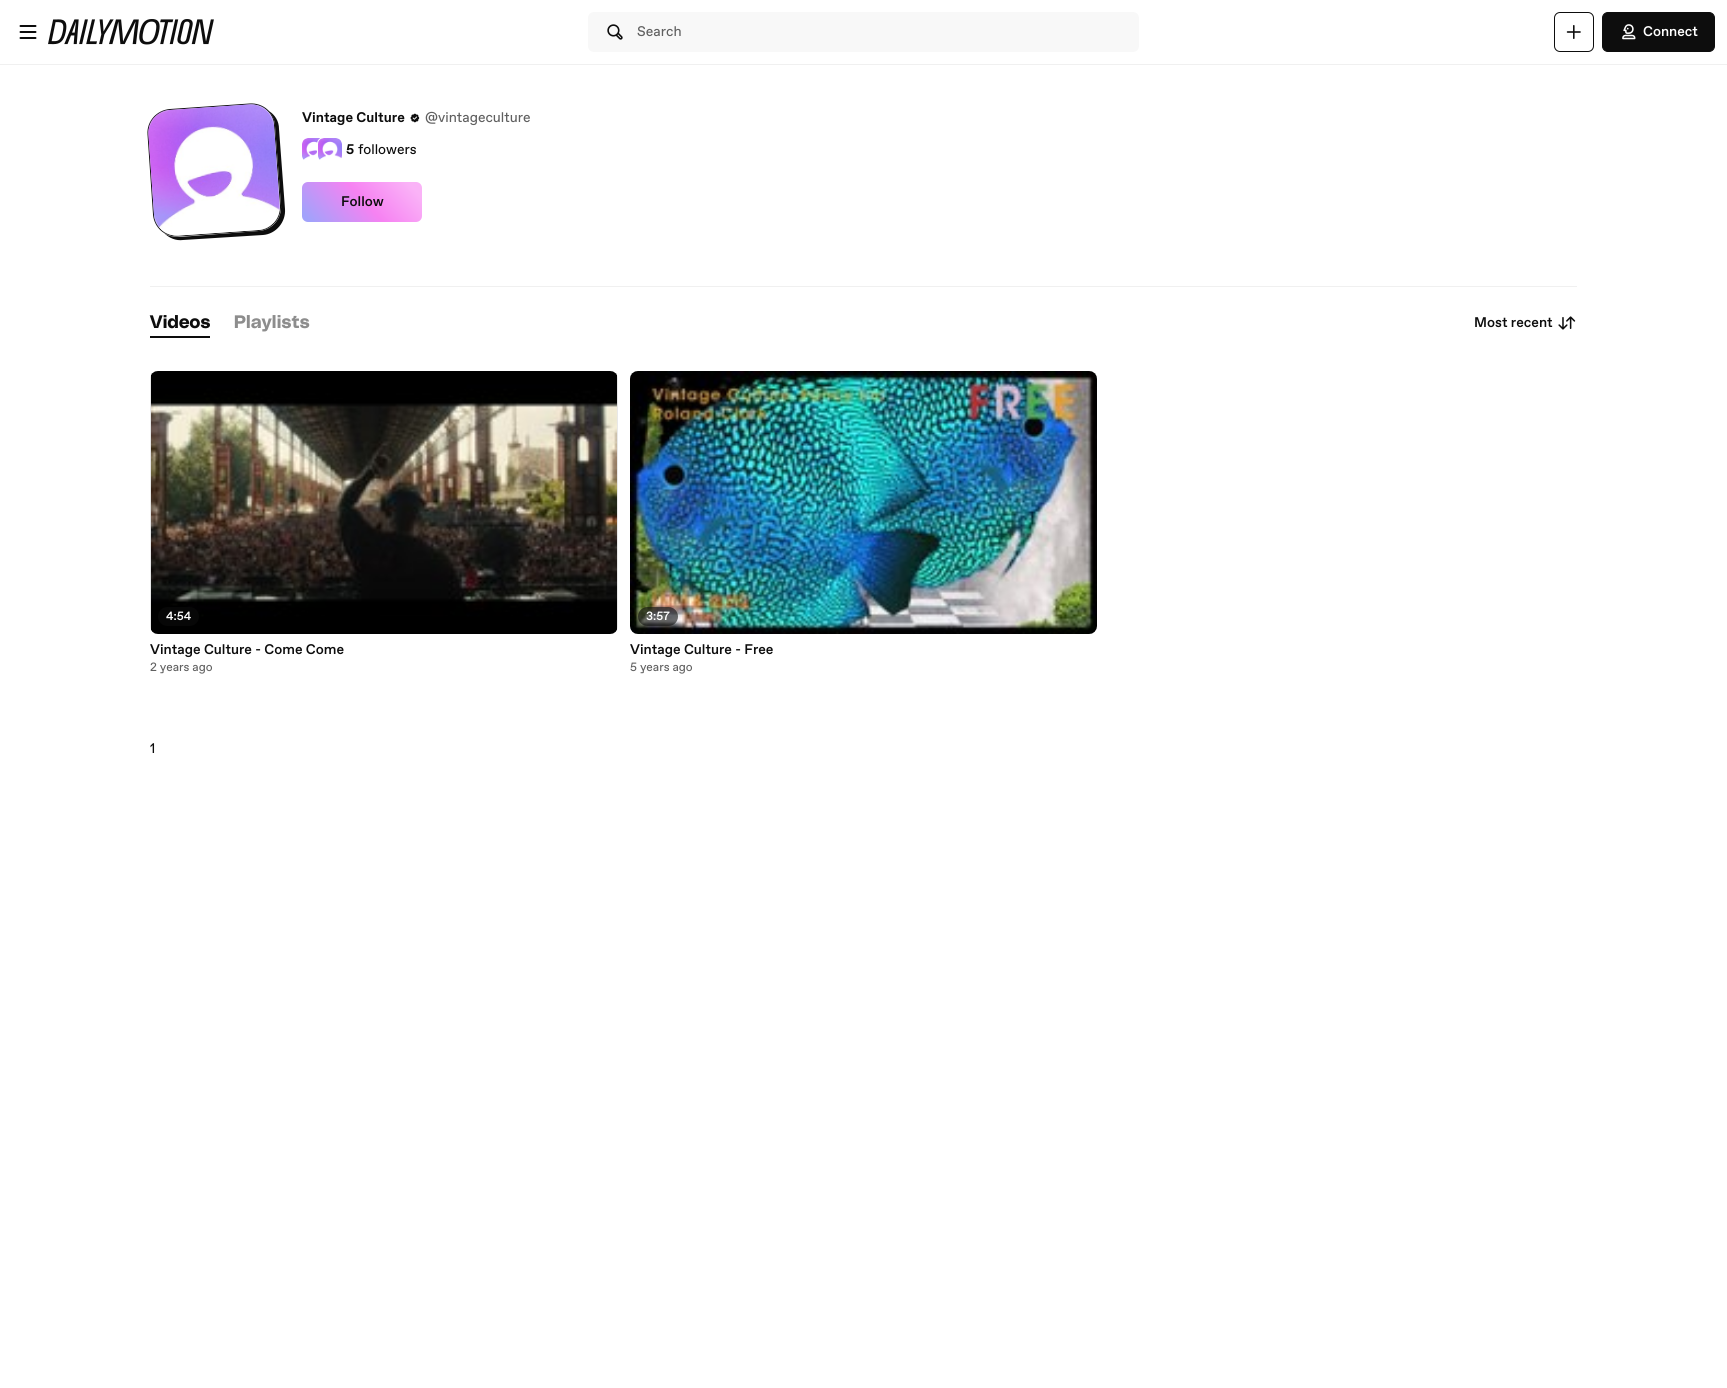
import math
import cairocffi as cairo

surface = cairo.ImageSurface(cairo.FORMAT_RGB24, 1727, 1388)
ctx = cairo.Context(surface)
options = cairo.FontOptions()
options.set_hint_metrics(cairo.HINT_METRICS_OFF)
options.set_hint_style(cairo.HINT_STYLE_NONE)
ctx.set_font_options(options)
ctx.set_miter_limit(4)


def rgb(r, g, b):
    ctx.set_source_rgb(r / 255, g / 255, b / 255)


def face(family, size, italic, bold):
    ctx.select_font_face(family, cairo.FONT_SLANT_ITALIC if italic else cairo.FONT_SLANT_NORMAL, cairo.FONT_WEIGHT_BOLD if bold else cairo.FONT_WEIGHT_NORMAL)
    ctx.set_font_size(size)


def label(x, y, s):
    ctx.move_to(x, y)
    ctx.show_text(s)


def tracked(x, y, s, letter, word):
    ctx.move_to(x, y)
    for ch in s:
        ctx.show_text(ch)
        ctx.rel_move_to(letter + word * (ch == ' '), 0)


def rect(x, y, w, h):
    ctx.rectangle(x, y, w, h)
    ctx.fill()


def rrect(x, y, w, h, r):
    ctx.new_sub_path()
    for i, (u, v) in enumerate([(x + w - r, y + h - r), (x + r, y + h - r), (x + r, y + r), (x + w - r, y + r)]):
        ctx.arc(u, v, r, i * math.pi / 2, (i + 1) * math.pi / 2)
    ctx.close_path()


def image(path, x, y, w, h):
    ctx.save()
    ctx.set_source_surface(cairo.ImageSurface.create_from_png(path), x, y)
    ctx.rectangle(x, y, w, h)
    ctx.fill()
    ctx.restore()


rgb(255, 255, 255)
ctx.paint()
rgb(240, 240, 240)
rect(0, 64, 1727, 1)
image('image0.png', 19, 25, 18, 14)
image('image1.png', 48, 19, 166, 26)
rgb(248, 248, 248)
rrect(588, 12, 551, 40, 6)
ctx.fill()
image('image2.png', 607, 24, 16, 16)
face('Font', 14, 0, 0)
rgb(96, 96, 96)
label(637, 36, 'Search')
rrect(1554.5, 12.5, 39, 39, 5.5)
rgb(13, 13, 13)
ctx.set_line_width(1)
ctx.stroke()
image('image3.png', 1566, 25, 15, 14)
rrect(1602.5, 12.5, 112, 39, 5.5)
ctx.fill_preserve()
ctx.stroke()
image('image4.png', 1622, 24, 14, 16)
face('Font Medium', 14, 0, 0)
rgb(255, 255, 255)
label(1643, 36, 'Connect')
rgb(240, 240, 240)
rect(150, 286, 1427, 1)
rgb(13, 13, 13)
ctx.new_path()
ctx.move_to(164, 233)
ctx.curve_to(169, 238, 176, 241, 183, 240)
ctx.line_to(263, 235)
ctx.curve_to(276, 234, 286, 222, 285, 209)
ctx.line_to(279, 129)
ctx.curve_to(279, 121, 275, 115, 269, 111)
ctx.curve_to(272, 115, 275, 120, 275, 126)
ctx.line_to(281, 205)
ctx.curve_to(282, 219, 272, 230, 259, 231)
ctx.line_to(179, 237)
ctx.curve_to(173, 237, 168, 236, 164, 233)
ctx.close_path()
ctx.fill()
ctx.new_path()
ctx.move_to(170, 109.5)
ctx.line_to(249.5, 104)
ctx.curve_to(262.5, 103, 274, 112.5, 274.5, 125.5)
ctx.line_to(280.5, 205.5)
ctx.curve_to(281, 218.5, 271.5, 229.5, 258.5, 230.5)
ctx.line_to(178.5, 236)
ctx.curve_to(165.5, 237, 154.5, 227.5, 153.5, 214.5)
ctx.line_to(148, 134.5)
ctx.curve_to(147, 121.5, 157, 110.5, 170, 109.5)
ctx.close_path()
ctx.stroke()
image('image5.png', 148, 104, 132, 132)
face('Font', 14, 0, 1)
label(302, 122, 'Vintage Culture')
image('image6.png', 410, 113, 10, 10)
face('Font', 14, 0, 0)
rgb(96, 96, 96)
label(425, 122, '@vintageculture')
image('image7.png', 302, 138, 21, 22)
rrect(301.5, 137.5, 25, 25, 6.5)
rgb(255, 255, 255)
ctx.stroke()
image('image8.png', 318, 138, 24, 22)
rrect(317.5, 137.5, 25, 25, 6.5)
ctx.stroke()
face('Font', 14, 0, 1)
rgb(13, 13, 13)
label(346, 154, '5')
face('Font', 14, 0, 0)
label(358, 154, 'followers')
gradient = cairo.LinearGradient(405, 163, 319, 241)
gradient.add_color_stop_rgba(0.09, 0.98, 0.702, 0.969, 1)
gradient.add_color_stop_rgba(0.48, 0.965, 0.51, 0.949, 1)
gradient.add_color_stop_rgba(0.94, 0.635, 0.635, 0.984, 1)
ctx.set_source(gradient)
rrect(302, 182, 120, 40, 6)
ctx.fill()
face('Font Medium', 14, 0, 0)
rgb(13, 13, 13)
label(341, 206, 'Follow')
rect(150, 336, 60, 2)
face('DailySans', 18, 0, 1)
tracked(150, 328, 'Videos', 0.25, 0)
rgb(141, 141, 141)
tracked(234, 328, 'Playlists', 0.25, 0)
face('Font Medium', 14, 0, 0)
rgb(13, 13, 13)
label(1474, 327, 'Most recent')
image('image9.png', 1558, 316, 18, 14)
rgb(232, 232, 232)
rrect(150, 371, 468, 263, 8)
ctx.fill()
image('image10.png', 151, 371, 466, 263)
ctx.set_source_rgba(0.051, 0.051, 0.051, 0.6)
rrect(158, 607, 41, 19, 9.5)
ctx.fill()
face('Font Medium', 12, 0, 0)
rgb(255, 255, 255)
label(166, 620, '4:54')
face('Font Medium', 14, 0, 0)
rgb(13, 13, 13)
label(150, 654, 'Vintage Culture - Come Come')
face('Font', 12, 0, 0)
rgb(96, 96, 96)
label(150, 671, '2 years ago')
rgb(232, 232, 232)
rrect(630, 371, 467, 263, 8)
ctx.fill()
image('image11.png', 630, 371, 467, 263)
ctx.set_source_rgba(0.051, 0.051, 0.051, 0.6)
rrect(638, 607, 40, 19, 9.5)
ctx.fill()
face('Font Medium', 12, 0, 0)
rgb(255, 255, 255)
label(646, 620, '3:57')
face('Font Medium', 14, 0, 0)
rgb(13, 13, 13)
label(630, 654, 'Vintage Culture - Free')
face('Font', 12, 0, 0)
rgb(96, 96, 96)
label(630, 671, '5 years ago')
face('Font', 14, 0, 0)
rgb(13, 13, 13)
label(150, 753, '1')
surface.write_to_png('render.png')
